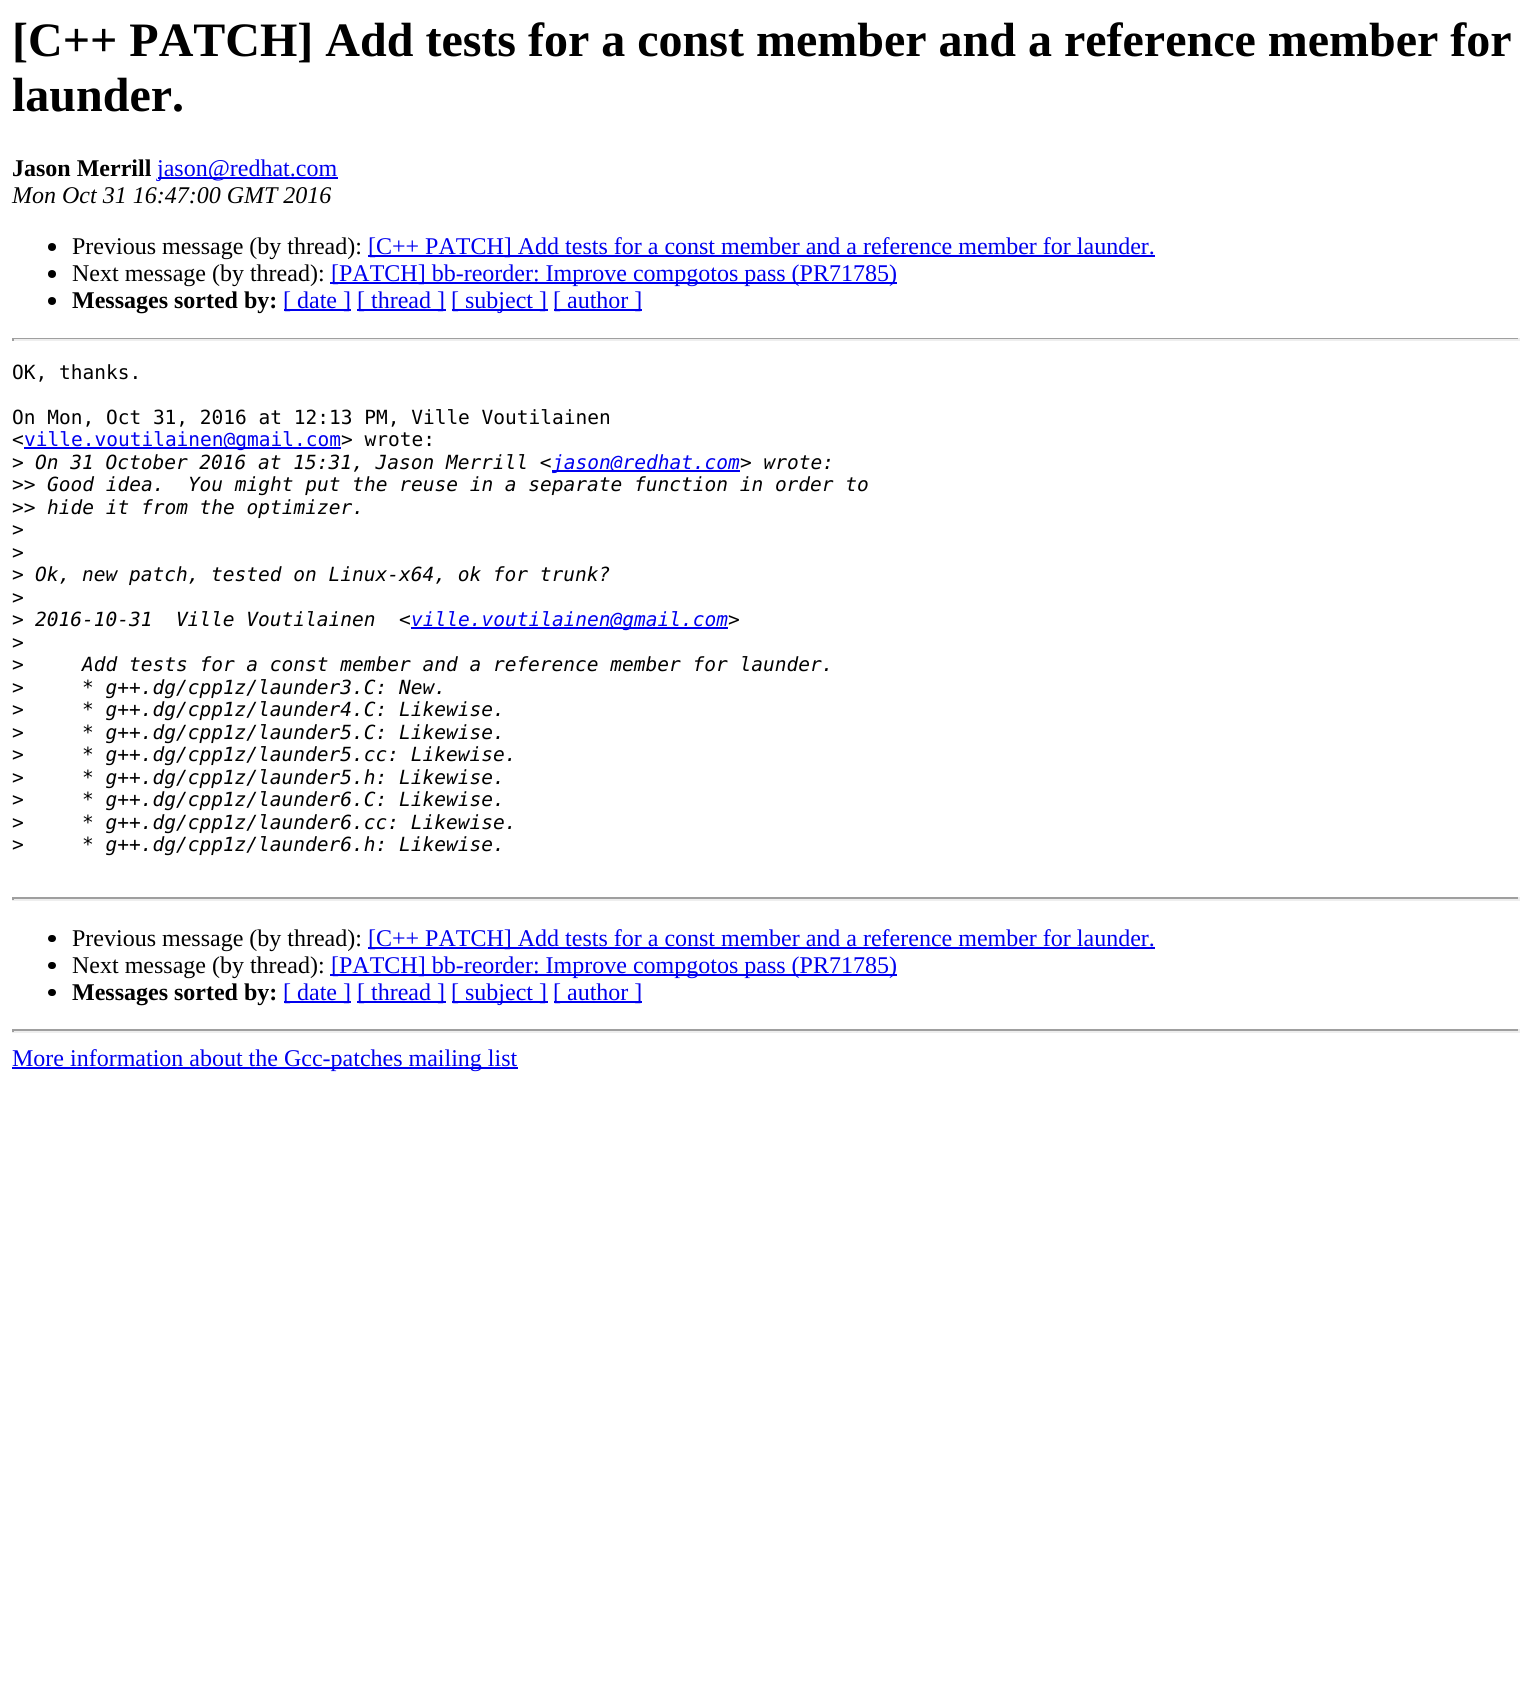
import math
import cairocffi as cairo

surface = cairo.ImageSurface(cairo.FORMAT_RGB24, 1531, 1688)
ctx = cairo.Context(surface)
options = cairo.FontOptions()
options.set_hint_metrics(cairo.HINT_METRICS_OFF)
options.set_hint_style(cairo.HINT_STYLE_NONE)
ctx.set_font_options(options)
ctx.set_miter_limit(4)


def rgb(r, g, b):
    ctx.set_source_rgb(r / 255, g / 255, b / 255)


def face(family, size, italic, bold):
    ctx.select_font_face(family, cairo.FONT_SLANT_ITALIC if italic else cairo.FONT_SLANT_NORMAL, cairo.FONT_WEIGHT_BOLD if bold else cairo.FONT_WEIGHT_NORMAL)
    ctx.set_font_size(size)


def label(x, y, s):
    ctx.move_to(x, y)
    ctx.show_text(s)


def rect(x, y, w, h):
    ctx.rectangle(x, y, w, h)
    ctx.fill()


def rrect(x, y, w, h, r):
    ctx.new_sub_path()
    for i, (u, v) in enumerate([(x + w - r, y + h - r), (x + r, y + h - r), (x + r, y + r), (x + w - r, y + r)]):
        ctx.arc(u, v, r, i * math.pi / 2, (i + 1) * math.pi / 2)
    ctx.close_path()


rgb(255, 255, 255)
ctx.paint()
face('Liberation Serif', 48, 0, 1)
rgb(0, 0, 0)
label(12, 56, '[C++ PATCH] Add tests for a const member and a reference member for')
label(12, 111, 'launder.')
face('Liberation Serif', 24, 0, 1)
label(12, 176, 'Jason Merrill')
rgb(0, 0, 238)
rect(158, 177, 180, 2)
face('Liberation Serif', 24, 0, 0)
label(157, 176, 'jason@redhat.com')
face('Liberation Serif', 24, 1, 0)
rgb(0, 0, 0)
label(12, 203, 'Mon Oct 31 16:47:00 GMT 2016')
ctx.new_path()
ctx.arc(52, 247, 4, 0, 2 * math.pi)
ctx.fill()
face('Liberation Serif', 24, 0, 0)
label(72, 254, 'Previous message (by thread):')
rgb(0, 0, 238)
rect(368, 255, 787, 2)
label(368, 254, '[C++ PATCH] Add tests for a const member and a reference member for launder.')
rgb(0, 0, 0)
ctx.new_path()
ctx.arc(52, 274, 4, 0, 2 * math.pi)
ctx.fill()
label(72, 281, 'Next message (by thread):')
rgb(0, 0, 238)
rect(330, 282, 567, 2)
label(331, 281, '[PATCH] bb-reorder: Improve compgotos pass (PR71785)')
rgb(0, 0, 0)
ctx.new_path()
ctx.arc(52, 301, 4, 0, 2 * math.pi)
ctx.fill()
face('Liberation Serif', 24, 0, 1)
label(72, 308, 'Messages sorted by:')
rgb(0, 0, 238)
rect(284, 309, 67, 2)
face('Liberation Serif', 24, 0, 0)
label(283, 308, '[ date ]')
rect(357, 309, 89, 2)
label(357, 308, '[ thread ]')
rect(452, 309, 96, 2)
label(451, 308, '[ subject ]')
rect(554, 309, 88, 2)
label(553, 308, '[ author ]')
rgb(159, 159, 159)
rect(12, 338, 1508, 1)
rgb(238, 238, 238)
rect(1518, 338, 2, 3)
rect(12, 339, 1508, 2)
rgb(159, 159, 159)
rect(12, 338, 2, 3)
face('DejaVu Sans Mono', 19.5, 0, 0)
rgb(0, 0, 0)
label(12, 379, 'OK, thanks.')
label(12, 424, 'On Mon, Oct 31, 2016 at 12:13 PM, Ville Voutilainen')
label(12, 446, '<')
rgb(0, 0, 238)
rect(24, 447, 317, 2)
label(24, 446, 'ville.voutilainen@gmail.com')
rgb(0, 0, 0)
label(341, 446, '> wrote:')
label(12, 469, '>')
face('DejaVu Sans Mono', 19.5, 1, 0)
label(35, 469, 'On 31 October 2016 at 15:31, Jason Merrill <')
rgb(0, 0, 238)
rect(552, 470, 188, 2)
label(552, 469, 'jason@redhat.com')
rgb(0, 0, 0)
label(740, 469, '> wrote:')
face('DejaVu Sans Mono', 19.5, 0, 0)
label(12, 491, '>>')
face('DejaVu Sans Mono', 19.5, 1, 0)
label(47, 491, 'Good idea.  You might put the reuse in a separate function in order to')
face('DejaVu Sans Mono', 19.5, 0, 0)
label(12, 514, '>>')
face('DejaVu Sans Mono', 19.5, 1, 0)
label(47, 514, 'hide it from the optimizer.')
face('DejaVu Sans Mono', 19.5, 0, 0)
label(12, 536, '>')
label(12, 559, '>')
label(12, 581, '>')
face('DejaVu Sans Mono', 19.5, 1, 0)
label(35, 581, 'Ok, new patch, tested on Linux-x64, ok for trunk?')
face('DejaVu Sans Mono', 19.5, 0, 0)
label(12, 604, '>')
label(12, 626, '>')
face('DejaVu Sans Mono', 19.5, 1, 0)
label(35, 626, '2016-10-31  Ville Voutilainen  <')
rgb(0, 0, 238)
rect(411, 627, 317, 2)
label(411, 626, 'ville.voutilainen@gmail.com')
rgb(0, 0, 0)
label(728, 626, '>')
face('DejaVu Sans Mono', 19.5, 0, 0)
label(12, 649, '>')
label(12, 671, '>')
face('DejaVu Sans Mono', 19.5, 1, 0)
label(82, 671, 'Add tests for a const member and a reference member for launder.')
face('DejaVu Sans Mono', 19.5, 0, 0)
label(12, 694, '>')
face('DejaVu Sans Mono', 19.5, 1, 0)
label(82, 694, '* g++.dg/cpp1z/launder3.C: New.')
face('DejaVu Sans Mono', 19.5, 0, 0)
label(12, 716, '>')
face('DejaVu Sans Mono', 19.5, 1, 0)
label(82, 716, '* g++.dg/cpp1z/launder4.C: Likewise.')
face('DejaVu Sans Mono', 19.5, 0, 0)
label(12, 739, '>')
face('DejaVu Sans Mono', 19.5, 1, 0)
label(82, 739, '* g++.dg/cpp1z/launder5.C: Likewise.')
face('DejaVu Sans Mono', 19.5, 0, 0)
label(12, 761, '>')
face('DejaVu Sans Mono', 19.5, 1, 0)
label(82, 761, '* g++.dg/cpp1z/launder5.cc: Likewise.')
face('DejaVu Sans Mono', 19.5, 0, 0)
label(12, 784, '>')
face('DejaVu Sans Mono', 19.5, 1, 0)
label(82, 784, '* g++.dg/cpp1z/launder5.h: Likewise.')
face('DejaVu Sans Mono', 19.5, 0, 0)
label(12, 806, '>')
face('DejaVu Sans Mono', 19.5, 1, 0)
label(82, 806, '* g++.dg/cpp1z/launder6.C: Likewise.')
face('DejaVu Sans Mono', 19.5, 0, 0)
label(12, 829, '>')
face('DejaVu Sans Mono', 19.5, 1, 0)
label(82, 829, '* g++.dg/cpp1z/launder6.cc: Likewise.')
face('DejaVu Sans Mono', 19.5, 0, 0)
label(12, 851, '>')
face('DejaVu Sans Mono', 19.5, 1, 0)
label(82, 851, '* g++.dg/cpp1z/launder6.h: Likewise.')
rgb(159, 159, 159)
rect(12, 897, 1508, 2)
rgb(238, 238, 238)
rect(1518, 897, 2, 3)
rect(12, 899, 1508, 2)
rgb(159, 159, 159)
rect(12, 897, 2, 3)
rgb(0, 0, 0)
rrect(48, 935, 8, 7, 3.5)
ctx.fill()
face('Liberation Serif', 24, 0, 0)
label(72, 946, 'Previous message (by thread):')
rgb(0, 0, 238)
rect(368, 947, 787, 2)
label(368, 946, '[C++ PATCH] Add tests for a const member and a reference member for launder.')
rgb(0, 0, 0)
rrect(48, 962, 8, 7, 3.5)
ctx.fill()
label(72, 973, 'Next message (by thread):')
rgb(0, 0, 238)
rect(330, 974, 567, 2)
label(331, 973, '[PATCH] bb-reorder: Improve compgotos pass (PR71785)')
rgb(0, 0, 0)
rrect(48, 989, 8, 7, 3.5)
ctx.fill()
face('Liberation Serif', 24, 0, 1)
label(72, 1000, 'Messages sorted by:')
rgb(0, 0, 238)
rect(284, 1001, 67, 2)
face('Liberation Serif', 24, 0, 0)
label(283, 1000, '[ date ]')
rect(357, 1001, 89, 2)
label(357, 1000, '[ thread ]')
rect(452, 1001, 96, 2)
label(451, 1000, '[ subject ]')
rect(554, 1001, 88, 2)
label(553, 1000, '[ author ]')
rgb(159, 159, 159)
rect(12, 1029, 1508, 2)
rgb(238, 238, 238)
rect(1518, 1029, 2, 3)
rect(12, 1031, 1508, 2)
rgb(159, 159, 159)
rect(12, 1029, 2, 3)
rgb(0, 0, 238)
rect(12, 1067, 506, 2)
label(12, 1066, 'More information about the Gcc-patches mailing list')
surface.write_to_png('render.png')
